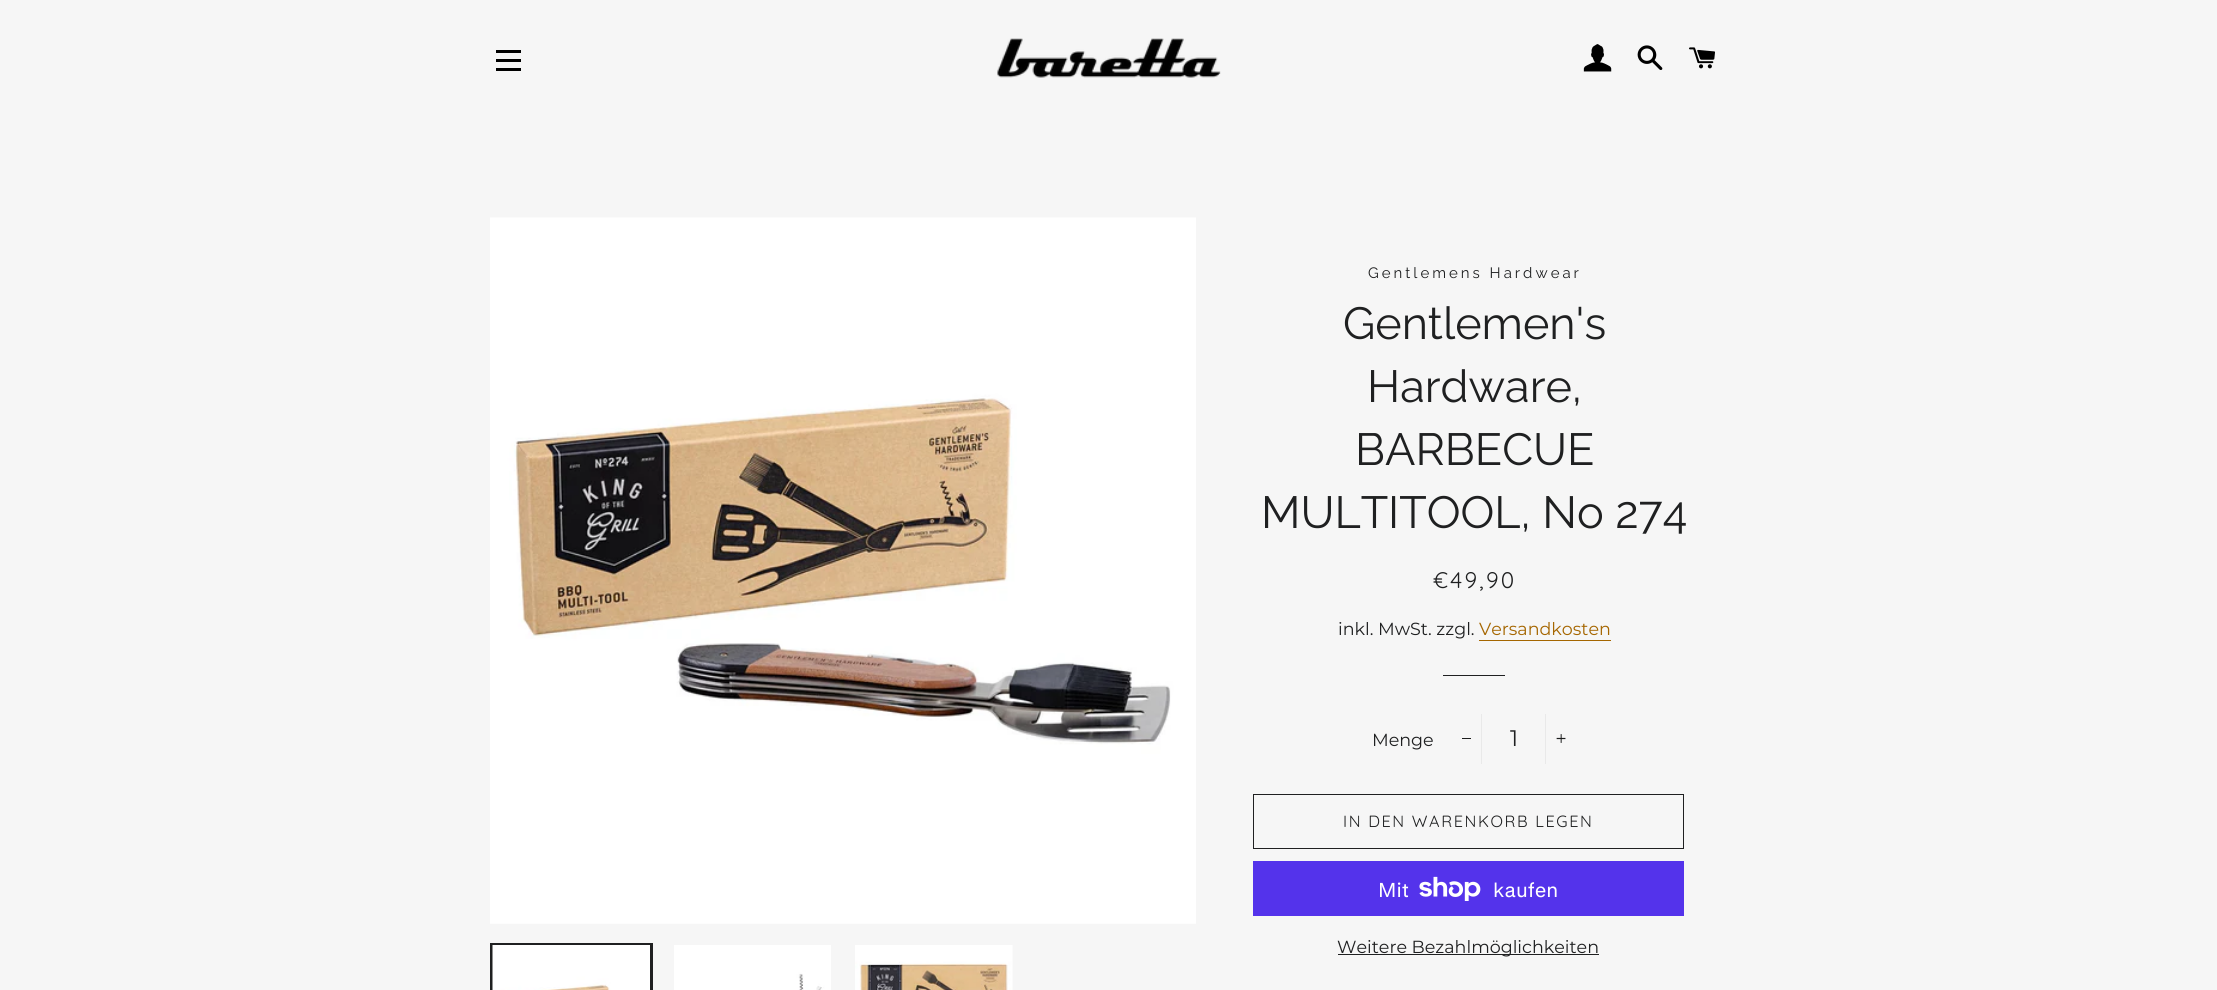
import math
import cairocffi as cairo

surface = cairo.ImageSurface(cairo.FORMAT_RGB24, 2217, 990)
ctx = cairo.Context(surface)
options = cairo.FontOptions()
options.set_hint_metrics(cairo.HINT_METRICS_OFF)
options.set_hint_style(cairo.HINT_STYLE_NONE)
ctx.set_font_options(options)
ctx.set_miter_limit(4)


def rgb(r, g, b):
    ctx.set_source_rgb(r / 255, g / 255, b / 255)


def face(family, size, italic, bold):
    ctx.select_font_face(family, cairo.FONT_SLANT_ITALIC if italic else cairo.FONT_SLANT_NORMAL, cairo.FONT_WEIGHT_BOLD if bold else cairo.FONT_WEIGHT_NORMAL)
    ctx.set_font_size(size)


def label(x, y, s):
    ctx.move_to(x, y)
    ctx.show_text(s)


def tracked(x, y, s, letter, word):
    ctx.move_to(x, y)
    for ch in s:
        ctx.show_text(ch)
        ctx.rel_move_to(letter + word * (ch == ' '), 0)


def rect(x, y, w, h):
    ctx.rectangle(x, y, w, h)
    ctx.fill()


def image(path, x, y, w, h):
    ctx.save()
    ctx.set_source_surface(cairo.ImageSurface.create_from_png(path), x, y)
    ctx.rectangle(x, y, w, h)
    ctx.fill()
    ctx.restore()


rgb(246, 246, 246)
ctx.paint()
rgb(0, 0, 0)
rect(496, 50, 25, 3)
rect(496, 59, 25, 3)
rect(496, 68, 25, 3)
image('image0.png', 997, 38, 224, 40)
image('image1.png', 1583, 44, 29, 28)
image('image2.png', 1637, 45, 26, 25)
image('image3.png', 1689, 47, 26, 22)
image('image4.png', 490, 217, 706, 707)
ctx.rectangle(491.5, 944.5, 160, 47)
rgb(31, 32, 33)
ctx.set_line_width(3)
ctx.stroke()
image('image5.png', 492, 945, 158, 45)
image('image6.png', 674, 945, 157, 45)
image('image7.png', 855, 945, 158, 45)
face('Raleway', 15, 0, 0)
tracked(1368, 278, 'Gentlemens Hardwear', 3, 0)
face('Raleway', 45, 0, 0)
label(1343, 339, 'Gentlemen\'s')
label(1367, 402, 'Hardware,')
label(1355, 465, 'BARBECUE')
label(1261, 528, 'MULTITOOL, No 274')
face('Quicksand', 22.5, 0, 0)
tracked(1433, 588, '€49,90', 2.25, 0)
face('Montserrat', 17.5, 0, 0)
label(1338, 635, 'inkl. MwSt. zzgl.')
rgb(165, 102, 0)
label(1479, 635, 'Versandkosten')
rect(1479, 640, 132, 1)
rgb(31, 32, 33)
rect(1443, 675, 62, 1)
label(1372, 746, 'Menge')
rgb(233, 233, 233)
rect(1481, 714, 1, 50)
rgb(28, 29, 29)
rect(1462, 738, 9, 1)
face('Montserrat', 22.5, 0, 0)
rgb(31, 32, 33)
label(1510, 746, '1')
rgb(233, 233, 233)
rect(1545, 714, 1, 50)
image('image8.png', 1556, 734, 10, 9)
ctx.rectangle(1253.5, 794.5, 430, 54)
rgb(31, 32, 33)
ctx.set_line_width(1)
ctx.stroke()
face('Quicksand', 16.25, 0, 0)
tracked(1343, 827, 'IN DEN WARENKORB LEGEN', 1.6, 0)
rgb(84, 51, 235)
rect(1253, 861, 431, 55)
face('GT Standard', 20, 0, 0)
rgb(255, 255, 255)
label(1378, 897, 'Mit')
image('image9.png', 1419, 876, 62, 25)
label(1493, 897, 'kaufen')
rgb(31, 32, 33)
rect(1338, 954, 261, 1)
face('Montserrat', 17.5, 0, 0)
label(1337, 953, 'Weitere Bezahlmöglichkeiten')
surface.write_to_png('render.png')
